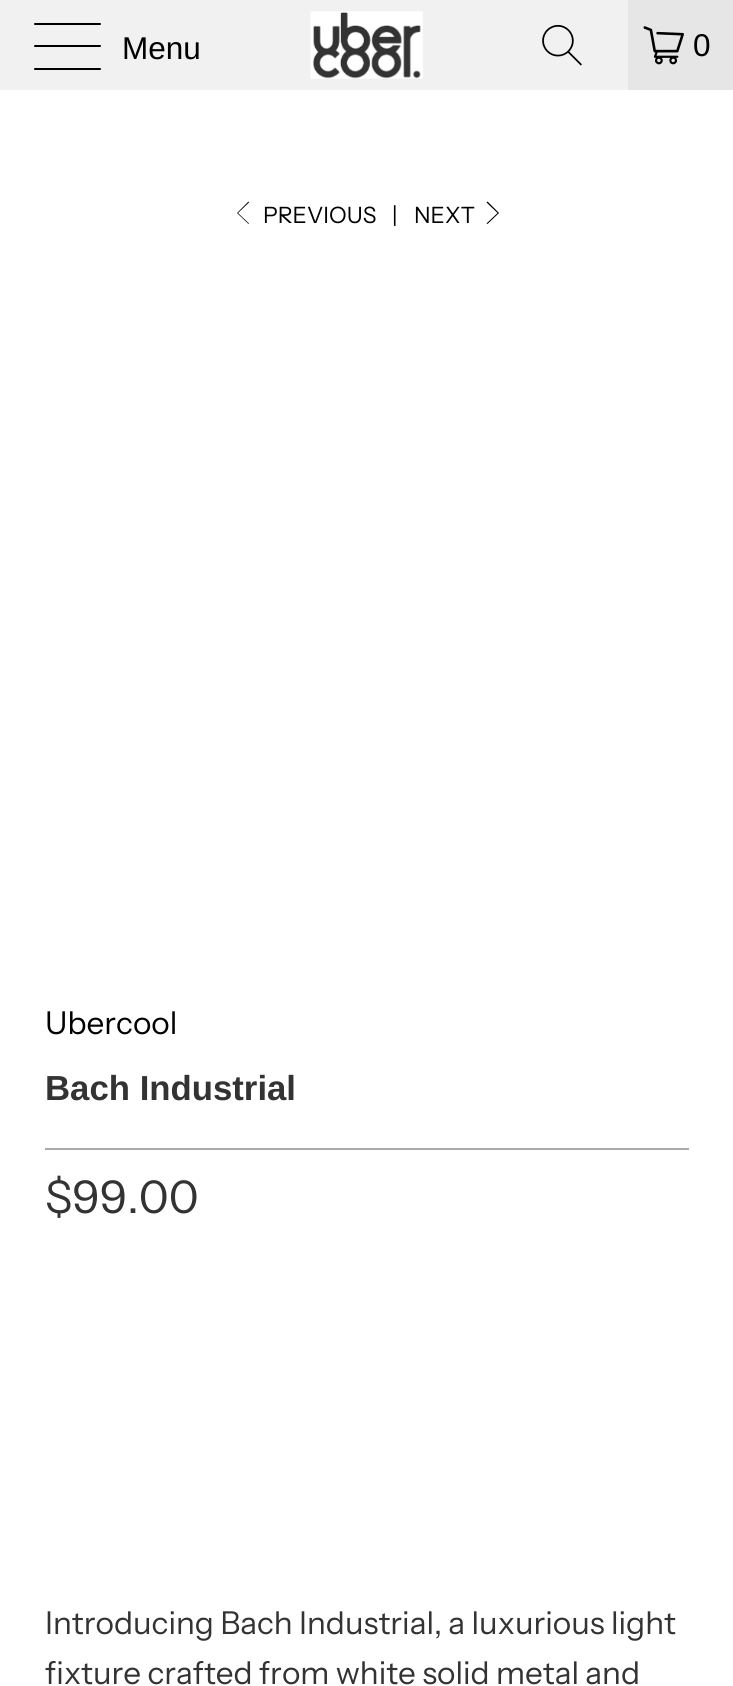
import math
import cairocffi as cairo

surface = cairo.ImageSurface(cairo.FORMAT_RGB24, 733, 1686)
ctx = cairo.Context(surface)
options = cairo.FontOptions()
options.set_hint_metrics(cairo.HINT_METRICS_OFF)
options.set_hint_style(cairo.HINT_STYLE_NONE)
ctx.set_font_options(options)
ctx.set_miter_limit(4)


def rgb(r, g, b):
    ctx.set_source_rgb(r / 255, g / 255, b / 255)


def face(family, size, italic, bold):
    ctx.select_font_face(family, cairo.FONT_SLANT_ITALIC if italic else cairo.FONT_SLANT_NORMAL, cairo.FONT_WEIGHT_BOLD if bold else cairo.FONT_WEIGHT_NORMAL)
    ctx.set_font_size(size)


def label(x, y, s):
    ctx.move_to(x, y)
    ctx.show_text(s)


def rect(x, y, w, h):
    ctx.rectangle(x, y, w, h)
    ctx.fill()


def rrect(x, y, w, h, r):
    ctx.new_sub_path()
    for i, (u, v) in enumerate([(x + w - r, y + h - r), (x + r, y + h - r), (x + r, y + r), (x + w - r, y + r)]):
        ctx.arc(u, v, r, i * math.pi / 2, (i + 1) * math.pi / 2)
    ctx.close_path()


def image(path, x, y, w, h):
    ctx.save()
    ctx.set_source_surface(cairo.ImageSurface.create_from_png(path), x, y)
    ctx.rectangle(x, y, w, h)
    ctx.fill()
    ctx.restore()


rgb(255, 255, 255)
ctx.paint()
rgb(241, 241, 241)
rect(0, 0, 628, 90)
rgb(0, 0, 0)
rrect(34, 23, 67, 2, 1)
ctx.fill()
rrect(34, 45, 67, 2, 1)
ctx.fill()
rrect(34, 68, 67, 2, 1)
ctx.fill()
face('Arimo', 31.5, 0, 0)
label(122, 59, 'Menu')
image('image0.png', 310, 11, 113, 68)
image('image1.png', 542, 24, 40, 42)
rgb(230, 230, 230)
rect(628, 0, 105, 90)
image('image2.png', 643, 26, 41, 39)
rgb(0, 0, 0)
label(693, 56, '0')
ctx.new_path()
ctx.move_to(248.5, 224)
ctx.line_to(237, 213)
ctx.line_to(248.5, 201.5)
ctx.line_to(249, 202.5)
ctx.line_to(238, 213)
ctx.line_to(249, 223.5)
ctx.close_path()
ctx.fill()
face('Instrument Sans', 22.5, 0, 0)
label(263, 223, 'PREVIOUS')
label(392, 223, '|')
label(414, 223, 'NEXT')
ctx.new_path()
ctx.move_to(487.5, 224)
ctx.line_to(486.5, 223.5)
ctx.line_to(497.5, 213)
ctx.line_to(486.5, 202.5)
ctx.line_to(487.5, 201.5)
ctx.line_to(499, 213)
ctx.close_path()
ctx.fill()
face('Instrument Sans', 31.5, 0, 0)
label(45, 1034, 'Ubercool')
face('Arimo', 34.75, 0, 1)
rgb(51, 51, 51)
label(45, 1100, 'Bach Industrial')
rgb(170, 170, 170)
rect(45, 1148, 644, 2)
face('Instrument Sans', 45, 0, 0)
rgb(51, 51, 51)
label(45, 1213, '$99.00')
face('Instrument Sans', 31.5, 0, 0)
label(45, 1634, 'Introducing Bach Industrial, a luxurious light')
label(45, 1684, 'fixture crafted from white solid metal and')
surface.write_to_png('render.png')
